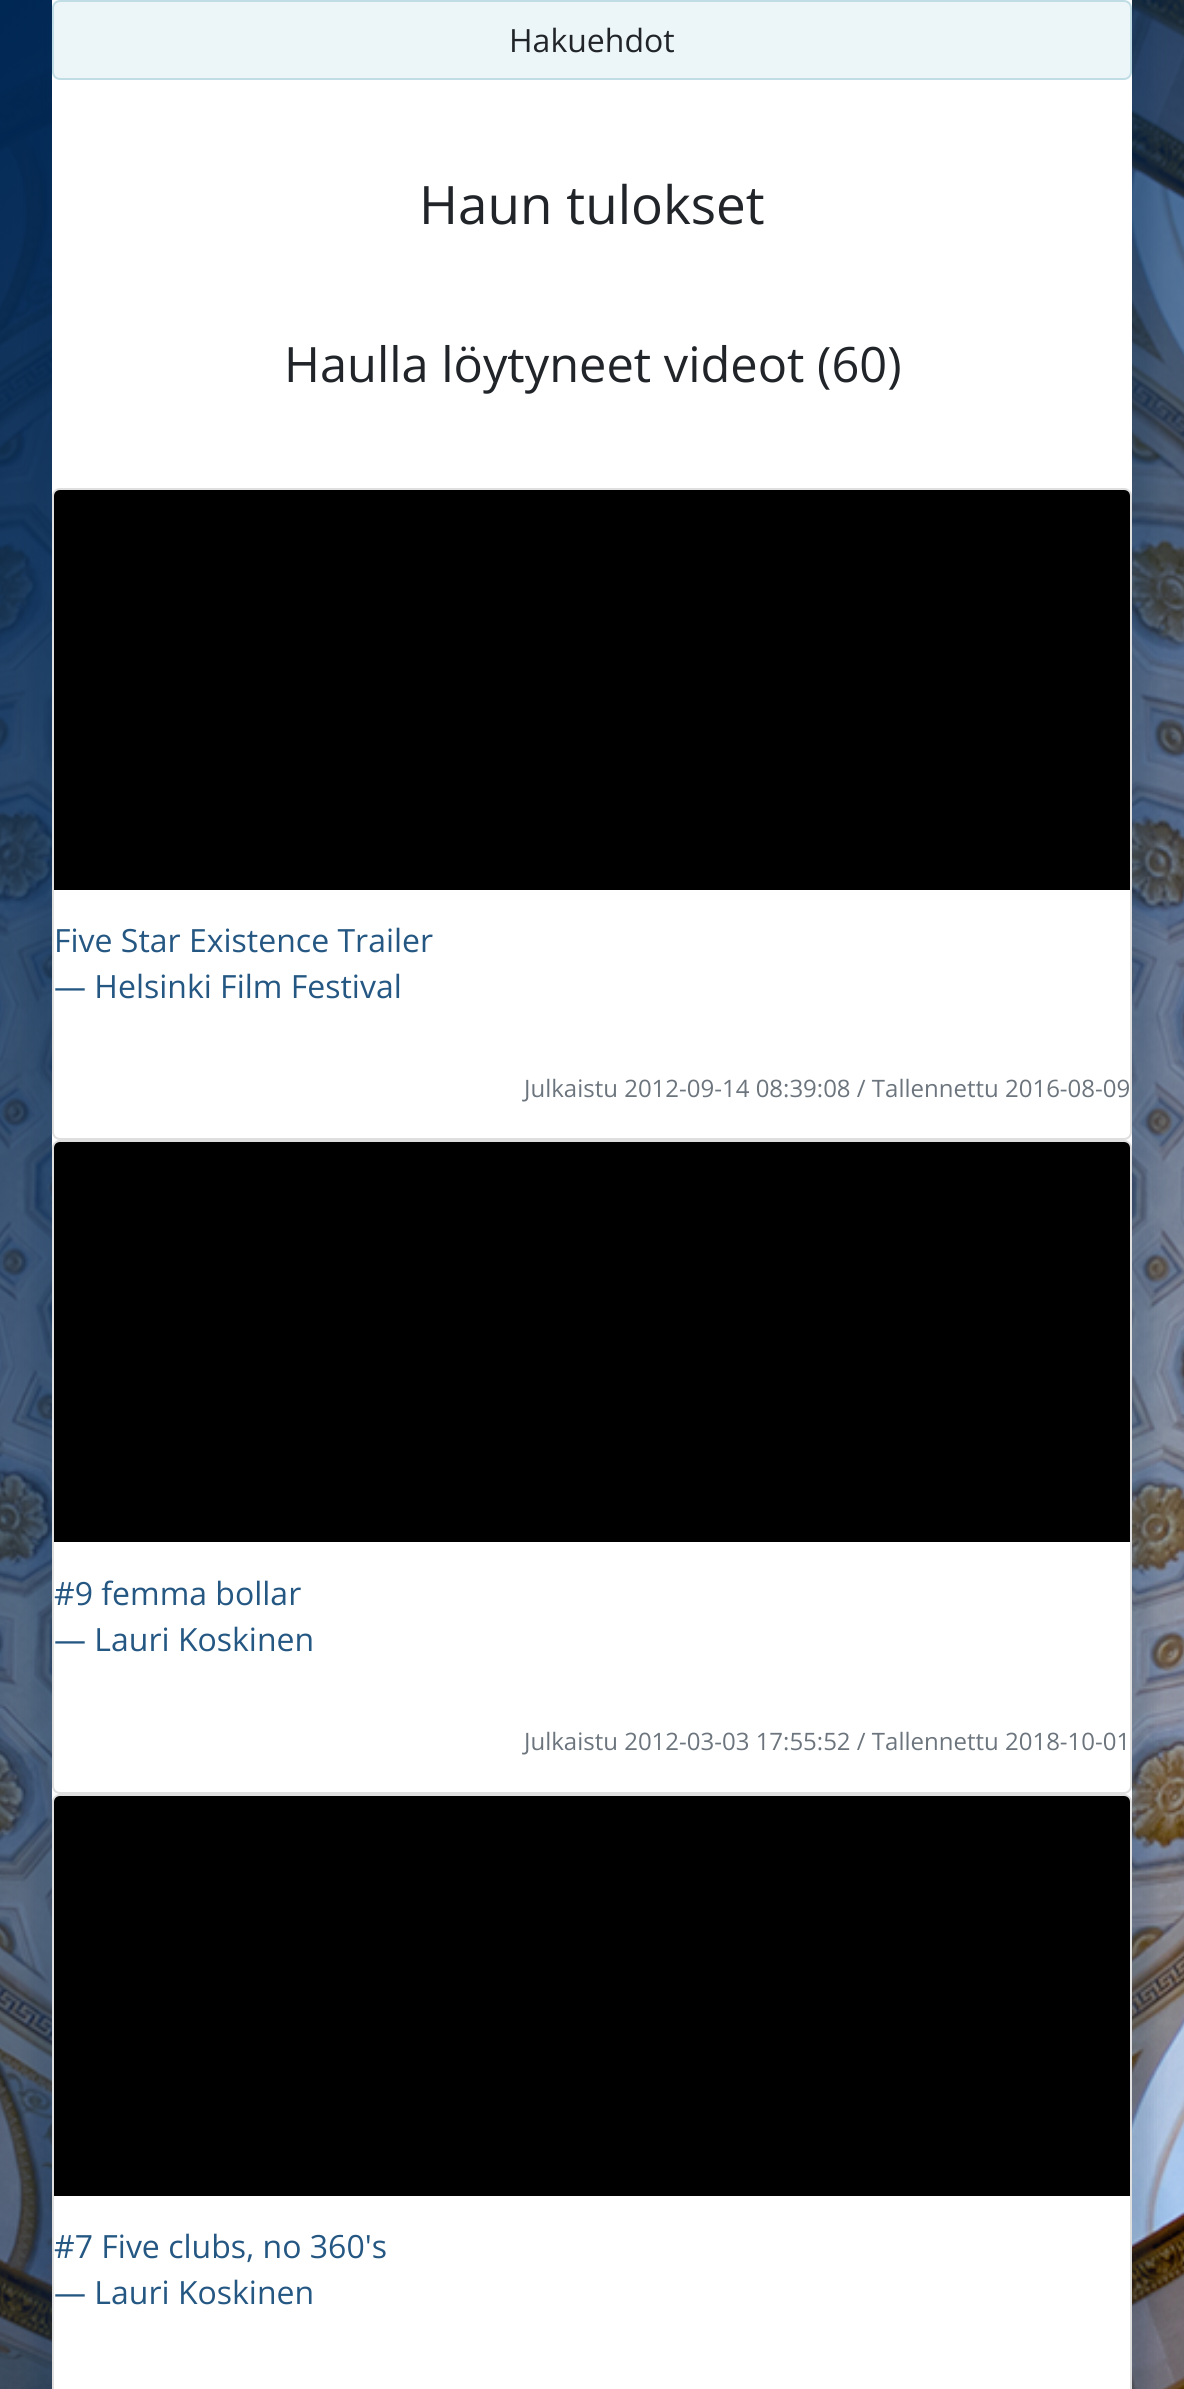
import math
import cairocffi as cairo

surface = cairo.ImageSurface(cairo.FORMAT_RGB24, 1184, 2389)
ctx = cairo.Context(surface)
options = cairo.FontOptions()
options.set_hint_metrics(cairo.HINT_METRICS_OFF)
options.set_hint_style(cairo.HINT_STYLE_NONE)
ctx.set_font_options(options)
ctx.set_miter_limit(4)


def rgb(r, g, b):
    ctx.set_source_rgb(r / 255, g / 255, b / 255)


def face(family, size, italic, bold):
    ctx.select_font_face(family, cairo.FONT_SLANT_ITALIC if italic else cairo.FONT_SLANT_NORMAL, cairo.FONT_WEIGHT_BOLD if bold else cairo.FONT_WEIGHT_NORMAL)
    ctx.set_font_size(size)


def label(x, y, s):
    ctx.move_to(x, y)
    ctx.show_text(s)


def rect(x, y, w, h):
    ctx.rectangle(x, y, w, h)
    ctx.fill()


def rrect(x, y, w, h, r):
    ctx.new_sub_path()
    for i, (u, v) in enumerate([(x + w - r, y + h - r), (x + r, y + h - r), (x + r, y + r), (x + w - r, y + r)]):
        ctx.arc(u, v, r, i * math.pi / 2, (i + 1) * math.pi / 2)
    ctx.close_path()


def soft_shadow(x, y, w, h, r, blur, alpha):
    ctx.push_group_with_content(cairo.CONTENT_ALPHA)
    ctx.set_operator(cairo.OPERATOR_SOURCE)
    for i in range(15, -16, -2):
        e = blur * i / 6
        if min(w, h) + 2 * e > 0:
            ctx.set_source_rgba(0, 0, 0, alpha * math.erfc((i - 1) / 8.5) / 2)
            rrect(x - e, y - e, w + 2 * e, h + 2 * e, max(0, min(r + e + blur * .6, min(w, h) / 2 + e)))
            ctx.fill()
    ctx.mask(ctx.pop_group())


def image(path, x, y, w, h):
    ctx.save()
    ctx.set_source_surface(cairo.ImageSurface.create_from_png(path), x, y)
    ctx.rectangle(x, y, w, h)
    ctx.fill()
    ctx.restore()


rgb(255, 255, 255)
ctx.paint()
image('image0.png', 0, 0, 1184, 2389)
rgb(0, 40, 85)
soft_shadow(32, -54, 1120, 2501, 28, 10, 0.2)
rgb(255, 255, 255)
rect(52, 0, 1080, 2389)
rgb(236, 245, 247)
rrect(53, 1, 1078, 78, 7)
ctx.fill_preserve()
rgb(192, 221, 230)
ctx.stroke()
face('Open Sans', 32, 0, 0)
rgb(33, 37, 41)
label(509, 52, 'Hakuehdot')
face('Open Sans', 53, 0, 0)
label(419, 224, 'Haun tulokset')
face('Open Sans', 48.75, 0, 0)
label(284, 382, 'Haulla löytyneet videot (60)')
rrect(53, 489, 1078, 650, 7)
rgb(223, 223, 223)
ctx.stroke()
rgb(0, 0, 0)
ctx.new_path()
ctx.move_to(60, 490)
ctx.line_to(1124, 490)
ctx.curve_to(1127.5, 490, 1130, 492.5, 1130, 496)
ctx.line_to(1130, 890)
ctx.line_to(54, 890)
ctx.line_to(54, 496)
ctx.curve_to(54, 492.5, 56.5, 490, 60, 490)
ctx.close_path()
ctx.fill()
face('Open Sans', 32, 0, 0)
rgb(37, 87, 131)
label(54, 952, 'Five Star Existence Trailer')
label(54, 998, '― Helsinki Film Festival')
face('Open Sans', 24, 0, 0)
rgb(108, 117, 125)
label(524, 1097, 'Julkaistu 2012-09-14 08:39:08 / Tallennettu 2016-08-09')
rrect(53, 1141, 1078, 652, 7)
rgb(223, 223, 223)
ctx.stroke()
rgb(0, 0, 0)
ctx.new_path()
ctx.move_to(60, 1142)
ctx.line_to(1124, 1142)
ctx.curve_to(1127.5, 1142, 1130, 1144.5, 1130, 1148)
ctx.line_to(1130, 1542)
ctx.line_to(54, 1542)
ctx.line_to(54, 1148)
ctx.curve_to(54, 1144.5, 56.5, 1142, 60, 1142)
ctx.close_path()
ctx.fill()
face('Open Sans', 32, 0, 0)
rgb(37, 87, 131)
label(54, 1605, '#9 femma bollar')
label(54, 1651, '― Lauri Koskinen')
face('Open Sans', 24, 0, 0)
rgb(108, 117, 125)
label(524, 1750, 'Julkaistu 2012-03-03 17:55:52 / Tallennettu 2018-10-01')
rrect(53, 1795, 1078, 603, 7)
rgb(223, 223, 223)
ctx.stroke()
rgb(0, 0, 0)
ctx.new_path()
ctx.move_to(60, 1796)
ctx.line_to(1124, 1796)
ctx.curve_to(1127.5, 1796, 1130, 1798.5, 1130, 1802)
ctx.line_to(1130, 2196)
ctx.line_to(54, 2196)
ctx.line_to(54, 1802)
ctx.curve_to(54, 1798.5, 56.5, 1796, 60, 1796)
ctx.close_path()
ctx.fill()
face('Open Sans', 32, 0, 0)
rgb(37, 87, 131)
label(54, 2258, '#7 Five clubs, no 360\'s')
label(54, 2304, '― Lauri Koskinen')
surface.write_to_png('render.png')
